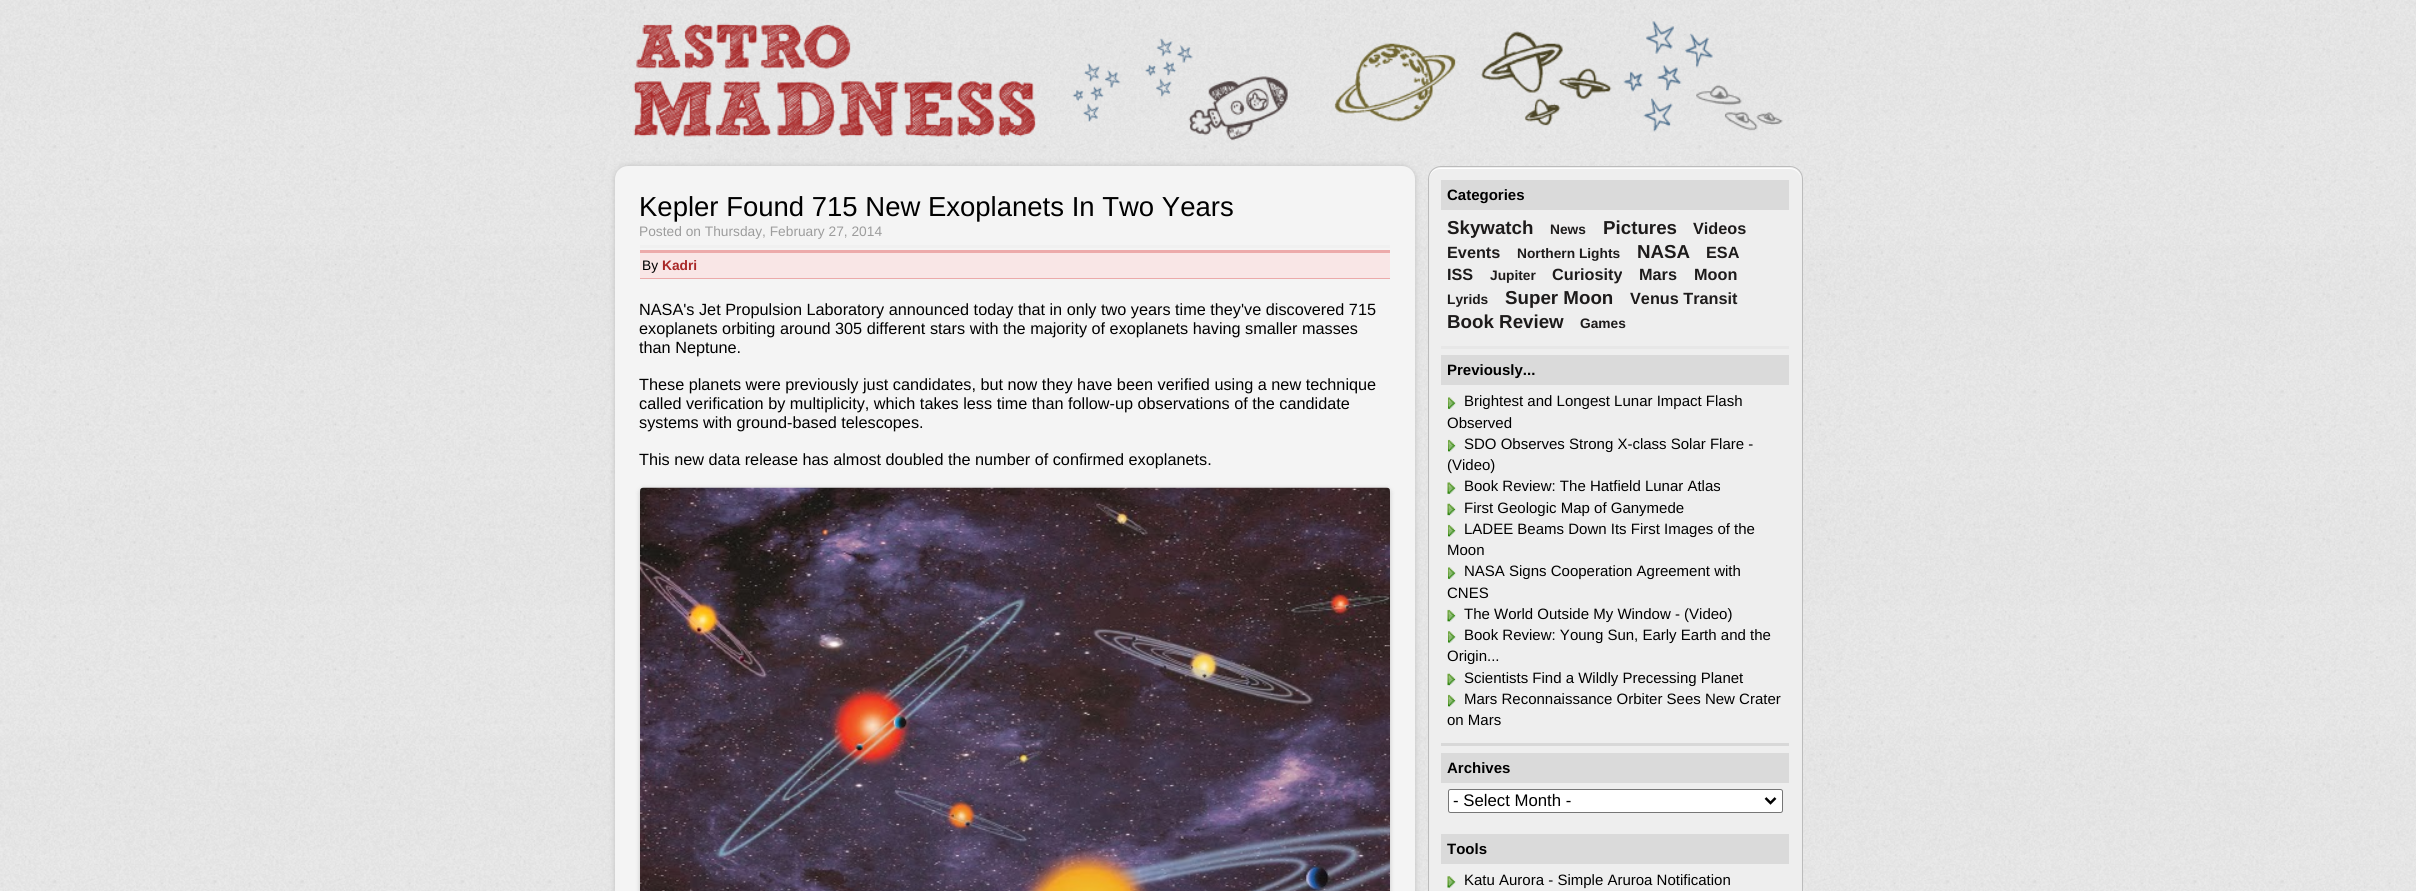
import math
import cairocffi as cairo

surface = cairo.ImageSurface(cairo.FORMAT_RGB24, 2416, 891)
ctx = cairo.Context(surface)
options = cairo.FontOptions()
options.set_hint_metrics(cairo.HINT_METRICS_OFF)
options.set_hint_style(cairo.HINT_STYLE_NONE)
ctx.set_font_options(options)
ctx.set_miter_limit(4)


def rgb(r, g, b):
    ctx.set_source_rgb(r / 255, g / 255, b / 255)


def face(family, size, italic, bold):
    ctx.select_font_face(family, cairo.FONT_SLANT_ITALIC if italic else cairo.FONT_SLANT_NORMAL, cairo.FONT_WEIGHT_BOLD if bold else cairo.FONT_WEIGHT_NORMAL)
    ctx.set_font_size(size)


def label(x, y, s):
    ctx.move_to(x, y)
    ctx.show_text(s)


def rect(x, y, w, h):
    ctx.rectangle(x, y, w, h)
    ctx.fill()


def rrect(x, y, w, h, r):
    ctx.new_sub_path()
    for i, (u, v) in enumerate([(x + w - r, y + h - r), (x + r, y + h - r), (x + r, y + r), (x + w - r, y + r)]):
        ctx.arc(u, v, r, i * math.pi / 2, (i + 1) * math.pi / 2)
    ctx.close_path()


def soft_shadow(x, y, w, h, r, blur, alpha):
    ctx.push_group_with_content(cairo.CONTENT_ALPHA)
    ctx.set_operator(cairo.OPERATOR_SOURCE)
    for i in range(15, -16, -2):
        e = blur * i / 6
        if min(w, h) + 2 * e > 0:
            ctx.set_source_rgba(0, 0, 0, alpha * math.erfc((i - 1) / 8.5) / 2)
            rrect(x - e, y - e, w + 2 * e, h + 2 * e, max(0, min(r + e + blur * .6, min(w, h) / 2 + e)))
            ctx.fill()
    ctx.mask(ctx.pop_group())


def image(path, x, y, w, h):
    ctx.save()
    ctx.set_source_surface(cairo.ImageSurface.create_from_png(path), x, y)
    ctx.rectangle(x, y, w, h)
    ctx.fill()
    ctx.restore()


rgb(255, 255, 255)
ctx.paint()
image('image0.png', 0, 0, 2416, 891)
image('image1.png', 633, 23, 403, 114)
image('image2.png', 1072, 21, 711, 120)
rgb(190, 190, 190)
soft_shadow(615, 166, 800, 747, 13, 3, 1)
rgb(244, 244, 244)
rrect(615, 166, 800, 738, 13)
ctx.fill()
face('Liberation Sans', 27.5, 0, 0)
rgb(0, 0, 0)
label(639, 216, 'Kepler Found 715 New Exoplanets In Two Years')
face('Liberation Sans', 13.75, 0, 0)
rgb(156, 156, 156)
label(639, 236, 'Posted on Thursday, February 27, 2014')
rgb(240, 240, 240)
rect(640, 245, 750, 3)
rgb(249, 230, 230)
rect(640, 253, 750, 25)
rgb(236, 170, 170)
rect(640, 250, 750, 3)
rect(640, 278, 750, 1)
rgb(0, 0, 0)
label(642, 270, 'By')
face('Liberation Sans', 13.75, 0, 1)
rgb(169, 39, 39)
label(662, 270, 'Kadri')
face('Liberation Sans', 16.25, 0, 0)
rgb(0, 0, 0)
label(639, 315, 'NASA\'s Jet Propulsion Laboratory announced today that in only two years time they\'ve discovered 715')
label(639, 334, 'exoplanets orbiting around 305 different stars with the majority of exoplanets having smaller masses')
label(639, 353, 'than Neptune.')
label(639, 390, 'These planets were previously just candidates, but now they have been verified using a new technique')
label(639, 409, 'called verification by multiplicity, which takes less time than follow-up observations of the candidate')
label(639, 428, 'systems with ground-based telescopes.')
label(639, 465, 'This new data release has almost doubled the number of confirmed exoplanets.')
rgb(0, 0, 0)
soft_shadow(640, 489, 750, 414, 4, 2.5, 0.2)
image('image3.png', 640, 487, 750, 404)
rgb(238, 238, 238)
rrect(1428, 166, 375, 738, 13)
ctx.fill()
rgb(255, 255, 255)
ctx.new_path()
ctx.move_to(1440, 169)
ctx.line_to(1790, 169)
ctx.curve_to(1796, 169, 1801, 174, 1801, 180)
ctx.line_to(1801, 179)
ctx.curve_to(1801, 173, 1796, 168, 1790, 168)
ctx.line_to(1440, 168)
ctx.curve_to(1434, 168, 1429, 173, 1429, 179)
ctx.line_to(1429, 180)
ctx.curve_to(1429, 174, 1434, 169, 1440, 169)
ctx.close_path()
ctx.fill()
rrect(1428.5, 166.5, 374, 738, 12.5)
rgb(187, 187, 187)
ctx.set_line_width(1)
ctx.stroke()
rgb(218, 218, 218)
rect(1441, 180, 348, 30)
face('Liberation Sans', 15, 0, 1)
rgb(0, 0, 0)
label(1447, 200, 'Categories')
face('Liberation Sans', 18.75, 0, 1)
rgb(29, 27, 27)
label(1447, 234, 'Skywatch')
face('Liberation Sans', 13.75, 0, 1)
label(1550, 234, 'News')
face('Liberation Sans', 18.75, 0, 1)
label(1603, 234, 'Pictures')
face('Liberation Sans', 16.25, 0, 1)
label(1693, 234, 'Videos')
label(1447, 258, 'Events')
face('Liberation Sans', 13.75, 0, 1)
label(1517, 258, 'Northern Lights')
face('Liberation Sans', 18.75, 0, 1)
label(1637, 258, 'NASA')
face('Liberation Sans', 16.25, 0, 1)
label(1706, 258, 'ESA')
label(1447, 280, 'ISS')
face('Liberation Sans', 13.75, 0, 1)
label(1490, 280, 'Jupiter')
face('Liberation Sans', 16.25, 0, 1)
label(1552, 280, 'Curiosity')
label(1639, 280, 'Mars')
label(1694, 280, 'Moon')
face('Liberation Sans', 13.75, 0, 1)
label(1447, 304, 'Lyrids')
face('Liberation Sans', 18.75, 0, 1)
label(1505, 304, 'Super Moon')
face('Liberation Sans', 16.25, 0, 1)
label(1630, 304, 'Venus Transit')
face('Liberation Sans', 18.75, 0, 1)
label(1447, 328, 'Book Review')
face('Liberation Sans', 13.75, 0, 1)
label(1580, 328, 'Games')
rgb(231, 231, 231)
rect(1441, 346, 348, 3)
rgb(218, 218, 218)
rect(1441, 355, 348, 30)
face('Liberation Sans', 15, 0, 1)
rgb(0, 0, 0)
label(1447, 375, 'Previously...')
image('image4.png', 1448, 397, 8, 13)
face('Liberation Sans', 15, 0, 0)
label(1464, 406, 'Brightest and Longest Lunar Impact Flash')
label(1447, 428, 'Observed')
image('image5.png', 1448, 439, 8, 13)
label(1464, 449, 'SDO Observes Strong X-class Solar Flare -')
label(1447, 470, '(Video)')
image('image6.png', 1447, 482, 9, 13)
label(1464, 491, 'Book Review: The Hatfield Lunar Atlas')
image('image7.png', 1447, 503, 9, 13)
label(1464, 513, 'First Geologic Map of Ganymede')
image('image5.png', 1448, 524, 8, 13)
label(1464, 534, 'LADEE Beams Down Its First Images of the')
label(1447, 555, 'Moon')
image('image4.png', 1448, 567, 8, 13)
label(1464, 576, 'NASA Signs Cooperation Agreement with')
label(1447, 598, 'CNES')
image('image8.png', 1447, 609, 9, 13)
label(1464, 619, 'The World Outside My Window - (Video)')
image('image9.png', 1448, 631, 8, 13)
label(1464, 640, 'Book Review: Young Sun, Early Earth and the')
label(1447, 661, 'Origin...')
image('image10.png', 1447, 673, 9, 13)
label(1464, 683, 'Scientists Find a Wildly Precessing Planet')
image('image5.png', 1448, 694, 8, 13)
label(1464, 704, 'Mars Reconnaissance Orbiter Sees New Crater')
label(1447, 725, 'on Mars')
rgb(216, 216, 216)
rect(1441, 743, 348, 3)
rgb(218, 218, 218)
rect(1441, 753, 348, 30)
face('Liberation Sans', 15, 0, 1)
rgb(0, 0, 0)
label(1447, 773, 'Archives')
rgb(255, 255, 255)
rrect(1448.5, 789.5, 334, 23, 2)
ctx.fill_preserve()
rgb(118, 118, 118)
ctx.stroke()
ctx.new_path()
ctx.move_to(1765.5, 798)
ctx.line_to(1770.5, 803)
ctx.line_to(1775.5, 798)
rgb(0, 0, 0)
ctx.set_line_width(2.5)
ctx.stroke()
face('Liberation Sans', 16.75, 0, 0)
label(1453, 806, '- Select Month -')
rgb(218, 218, 218)
rect(1441, 834, 348, 30)
face('Liberation Sans', 15, 0, 1)
rgb(0, 0, 0)
label(1447, 854, 'Tools')
image('image11.png', 1447, 876, 9, 13)
face('Liberation Sans', 15, 0, 0)
label(1464, 885, 'Katu Aurora - Simple Aruroa Notification')
surface.write_to_png('render.png')
